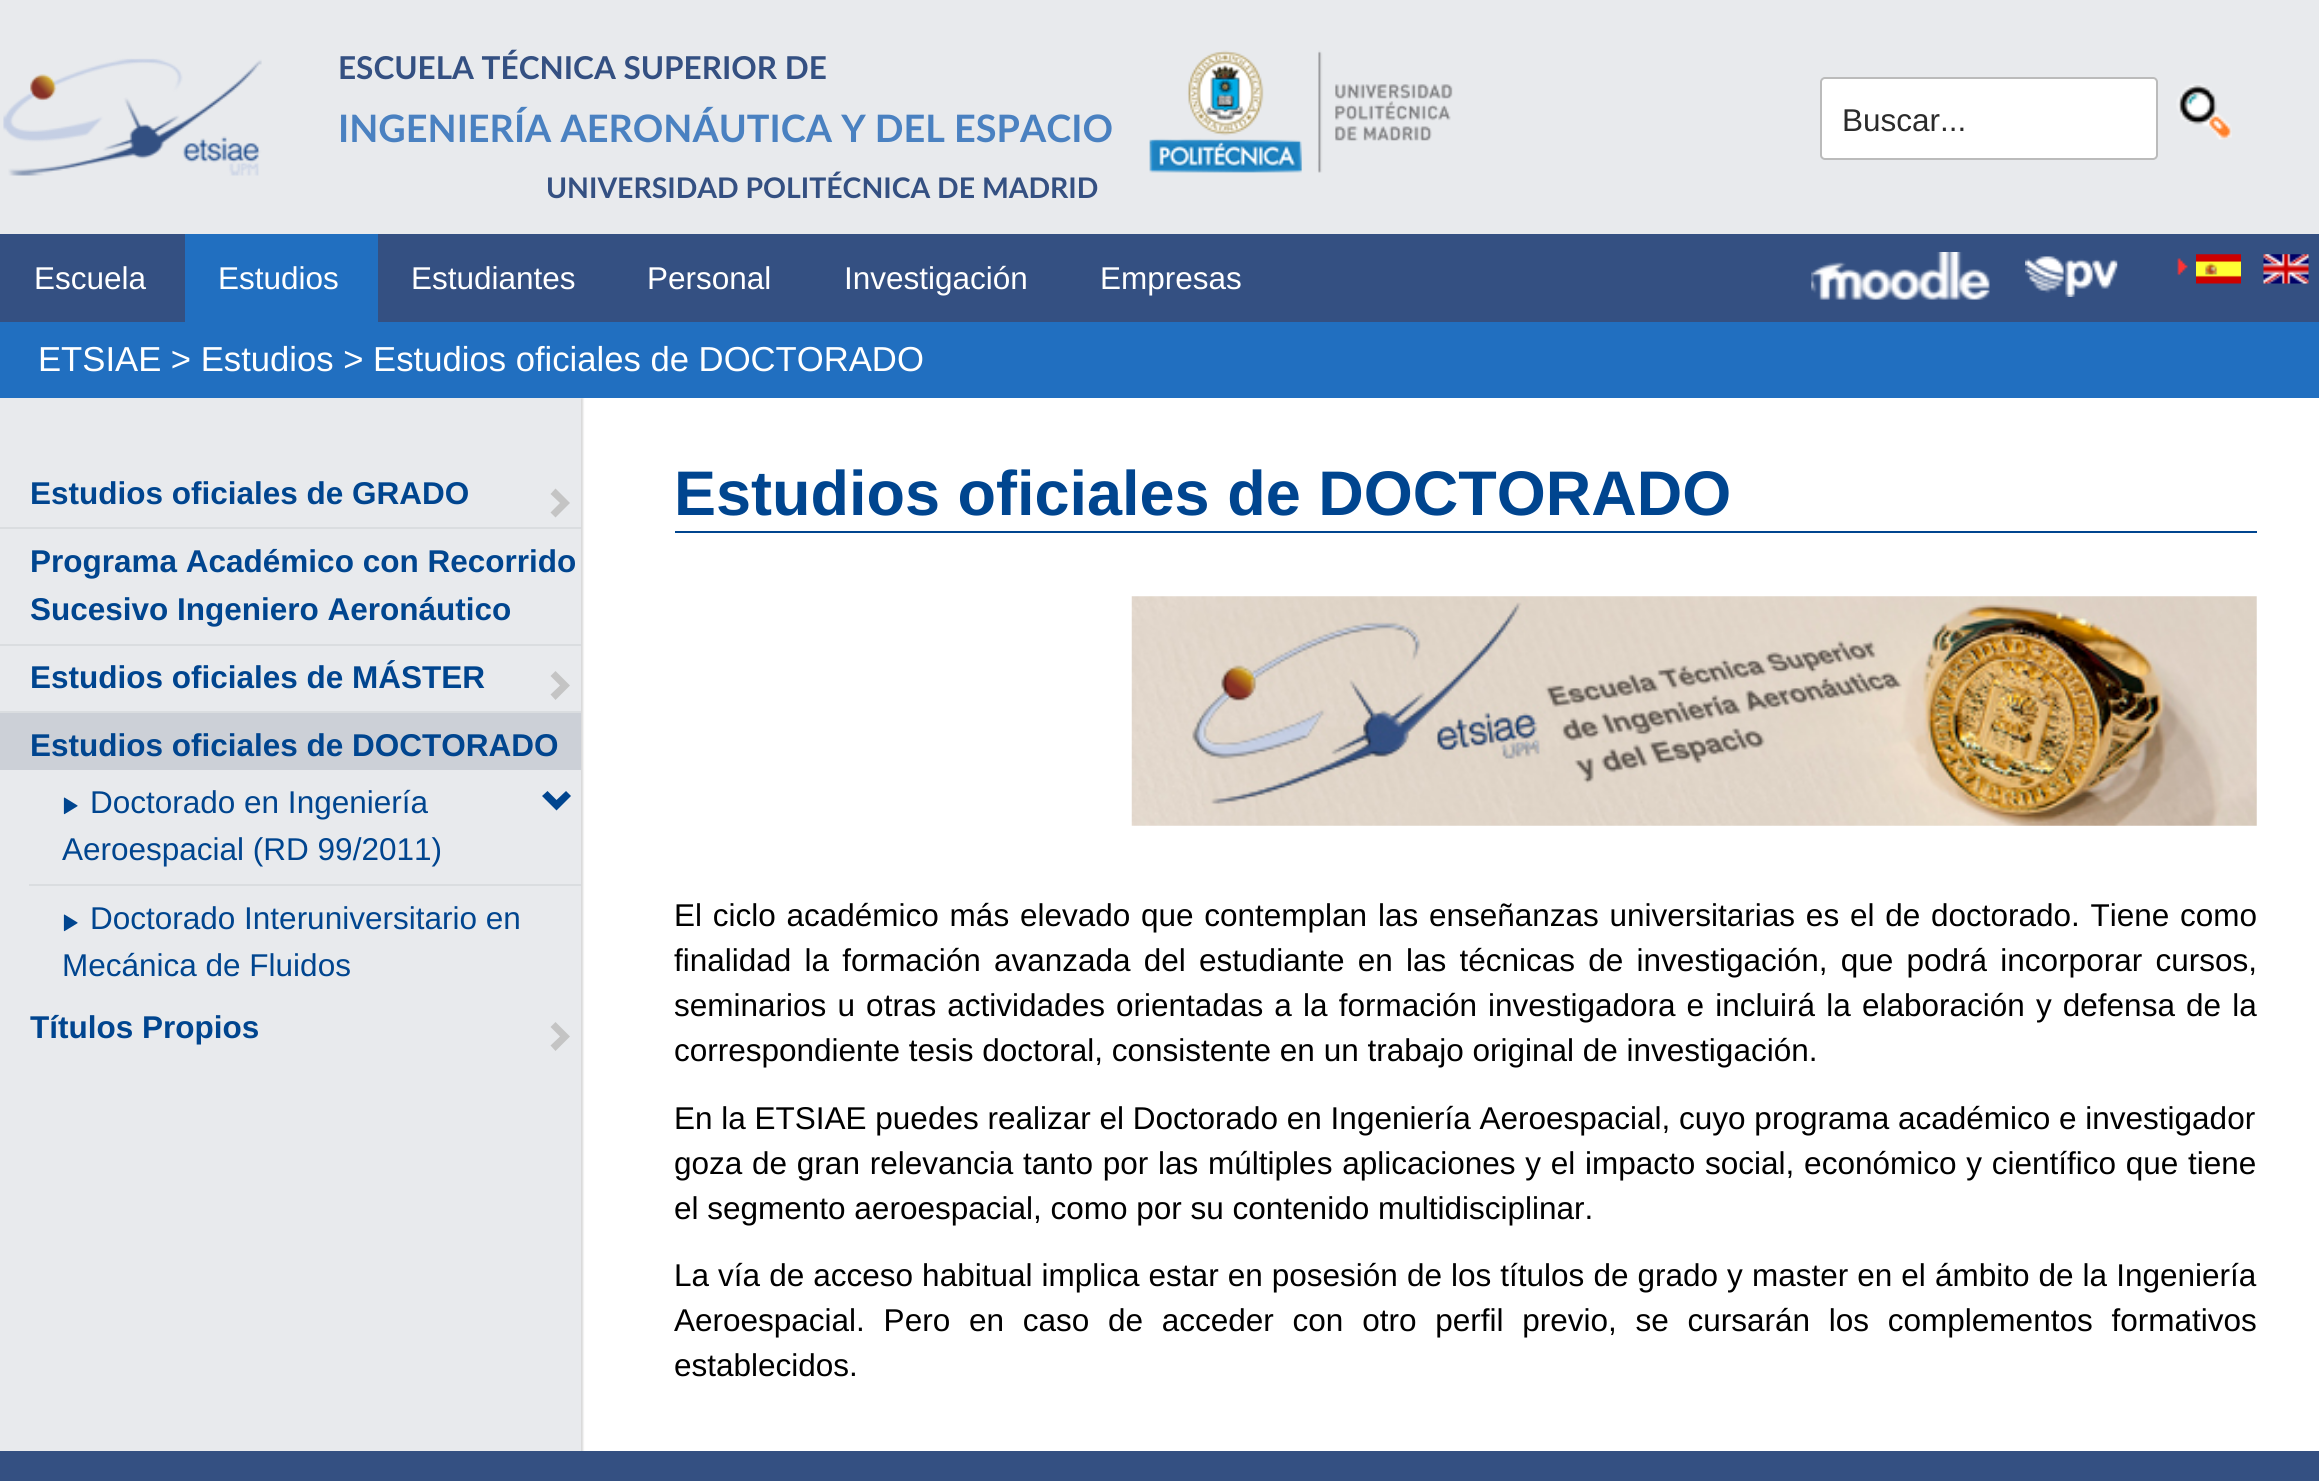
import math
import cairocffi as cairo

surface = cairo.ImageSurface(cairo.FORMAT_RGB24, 2319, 1481)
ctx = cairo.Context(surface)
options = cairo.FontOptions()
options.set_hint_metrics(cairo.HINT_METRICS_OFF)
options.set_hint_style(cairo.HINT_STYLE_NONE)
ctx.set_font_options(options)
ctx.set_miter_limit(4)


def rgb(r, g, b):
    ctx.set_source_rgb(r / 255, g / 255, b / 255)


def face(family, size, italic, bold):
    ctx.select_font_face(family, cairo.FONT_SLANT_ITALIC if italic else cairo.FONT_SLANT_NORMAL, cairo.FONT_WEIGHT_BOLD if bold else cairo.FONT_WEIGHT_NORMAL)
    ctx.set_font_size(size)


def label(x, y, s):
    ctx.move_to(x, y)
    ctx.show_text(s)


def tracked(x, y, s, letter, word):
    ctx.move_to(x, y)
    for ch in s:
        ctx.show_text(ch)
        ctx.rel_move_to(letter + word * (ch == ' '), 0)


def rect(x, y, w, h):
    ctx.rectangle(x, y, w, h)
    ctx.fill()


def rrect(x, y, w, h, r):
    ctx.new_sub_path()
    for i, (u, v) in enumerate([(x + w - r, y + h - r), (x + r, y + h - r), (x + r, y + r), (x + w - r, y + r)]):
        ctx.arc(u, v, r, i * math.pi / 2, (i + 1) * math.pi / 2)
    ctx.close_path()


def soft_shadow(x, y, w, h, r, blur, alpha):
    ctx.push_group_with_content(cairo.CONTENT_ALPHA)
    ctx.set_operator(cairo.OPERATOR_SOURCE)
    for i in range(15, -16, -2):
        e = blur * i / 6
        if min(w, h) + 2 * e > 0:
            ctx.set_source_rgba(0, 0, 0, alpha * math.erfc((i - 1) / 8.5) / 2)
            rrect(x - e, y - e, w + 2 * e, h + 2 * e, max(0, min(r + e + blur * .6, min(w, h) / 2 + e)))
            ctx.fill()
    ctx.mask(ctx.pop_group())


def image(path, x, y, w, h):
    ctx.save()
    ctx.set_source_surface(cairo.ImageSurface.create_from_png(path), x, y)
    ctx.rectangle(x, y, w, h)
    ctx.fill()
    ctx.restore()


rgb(255, 255, 255)
ctx.paint()
rgb(232, 234, 237)
rect(0, 0, 2319, 234)
image('image0.png', 3, 58, 259, 118)
face('Lato', 31.5, 0, 1)
rgb(52, 80, 130)
label(338, 79, 'ESCUELA TÉCNICA SUPERIOR DE')
face('Lato', 37.8, 0, 1)
rgb(74, 129, 193)
label(338, 142, 'INGENIERÍA AERONÁUTICA Y DEL ESPACIO')
face('Lato', 28.4, 0, 1)
rgb(52, 80, 130)
label(546, 198, 'UNIVERSIDAD POLITÉCNICA DE MADRID')
image('image1.png', 1149, 50, 304, 123)
rgb(255, 255, 255)
rrect(1821, 78, 336, 81, 4)
ctx.fill_preserve()
rgb(187, 187, 187)
ctx.stroke()
face('Liberation Sans', 31.5, 0, 0)
rgb(43, 43, 43)
label(1842, 131, 'Buscar...')
image('image2.png', 2176, 83, 56, 57)
rgb(52, 80, 130)
rect(0, 234, 2319, 88)
rgb(255, 255, 255)
label(34, 289, 'Escuela')
rgb(33, 111, 192)
rect(185, 234, 193, 88)
rgb(255, 255, 255)
label(218, 289, 'Estudios')
label(411, 289, 'Estudiantes')
label(647, 289, 'Personal')
label(844, 289, 'Investigación')
label(1100, 289, 'Empresas')
image('image3.png', 1811, 252, 179, 48)
image('image4.png', 2025, 256, 93, 41)
image('image5.png', 2177, 258, 11, 18)
image('image6.png', 2196, 254, 45, 30)
image('image7.png', 2263, 254, 46, 30)
rgb(33, 111, 192)
rect(0, 322, 2319, 76)
face('Liberation Sans', 34.65, 0, 0)
rgb(255, 255, 255)
label(38, 371, 'ETSIAE > Estudios > Estudios oficiales de DOCTORADO')
rgb(52, 80, 130)
rect(0, 1451, 2319, 30)
ctx.save()
ctx.rectangle(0, 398, 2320, 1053)
ctx.clip()
rgb(50, 50, 50)
soft_shadow(2, 398, 581, 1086, 0, 1, 0.2)
ctx.restore()
rgb(232, 234, 237)
rect(0, 398, 581, 1053)
rgb(218, 221, 224)
rect(0, 527, 581, 2)
face('Liberation Sans', 31.5, 0, 1)
rgb(0, 69, 143)
label(30, 504, 'Estudios oficiales de GRADO')
rgb(196, 196, 196)
ctx.new_path()
ctx.move_to(570, 503)
ctx.line_to(555.5, 517.5)
ctx.line_to(550.5, 512.5)
ctx.line_to(560, 503)
ctx.line_to(550.5, 494)
ctx.line_to(555.5, 488.5)
ctx.close_path()
ctx.fill()
rgb(218, 221, 224)
rect(0, 644, 581, 2)
rgb(0, 69, 143)
label(30, 572, 'Programa Académico con Recorrido')
label(30, 620, 'Sucesivo Ingeniero Aeronáutico')
rgb(218, 221, 224)
rect(0, 711, 581, 2)
rgb(0, 69, 143)
label(30, 688, 'Estudios oficiales de MÁSTER')
rgb(196, 196, 196)
ctx.new_path()
ctx.move_to(570, 685.5)
ctx.line_to(555.5, 700)
ctx.line_to(550.5, 694.5)
ctx.line_to(560, 685.5)
ctx.line_to(550.5, 676)
ctx.line_to(555.5, 671)
ctx.close_path()
ctx.fill()
rgb(204, 208, 215)
rect(0, 713, 581, 57)
rgb(0, 69, 143)
label(30, 756, 'Estudios oficiales de DOCTORADO')
rgb(218, 221, 224)
rect(29, 884, 552, 2)
image('image8.png', 63, 797, 15, 18)
face('Liberation Sans', 31.5, 0, 0)
rgb(0, 69, 143)
label(90, 813, 'Doctorado en Ingeniería')
label(62, 860, 'Aeroespacial (RD 99/2011)')
image('image8.png', 63, 914, 15, 18)
label(90, 929, 'Doctorado Interuniversitario en')
label(62, 976, 'Mecánica de Fluidos')
ctx.new_path()
ctx.move_to(571, 796)
ctx.line_to(556.5, 810.5)
ctx.line_to(542, 796)
ctx.line_to(547.5, 791)
ctx.line_to(556.5, 800)
ctx.line_to(566, 791)
ctx.close_path()
ctx.fill()
face('Liberation Sans', 31.5, 0, 1)
label(30, 1038, 'Títulos Propios')
rgb(196, 196, 196)
ctx.new_path()
ctx.move_to(570, 1036.5)
ctx.line_to(555.5, 1051)
ctx.line_to(550.5, 1045.5)
ctx.line_to(560, 1036.5)
ctx.line_to(550.5, 1027)
ctx.line_to(555.5, 1022)
ctx.close_path()
ctx.fill()
rgb(0, 69, 143)
rect(675, 531, 1582, 2)
face('Liberation Sans', 63, 0, 1)
label(674, 515, 'Estudios oficiales de DOCTORADO')
image('image9.png', 1131, 596, 1126, 230)
face('Liberation Sans', 31.5, 0, 0)
rgb(0, 0, 0)
tracked(674, 926, 'El ciclo académico más elevado que contemplan las enseñanzas universitarias es el de doctorado. Tiene como', 0, 2)
tracked(674, 971, 'finalidad la formación avanzada del estudiante en las técnicas de investigación, que podrá incorporar cursos,', 0, 4.5)
tracked(674, 1016, 'seminarios u otras actividades orientadas a la formación investigadora e incluirá la elaboración y defensa de la', 0, 2.4)
label(674, 1061, 'correspondiente tesis doctoral, consistente en un trabajo original de investigación.')
label(674, 1129, 'En la ETSIAE puedes realizar el Doctorado en Ingeniería Aeroespacial, cuyo programa académico e investigador')
tracked(674, 1174, 'goza de gran relevancia tanto por las múltiples aplicaciones y el impacto social, económico y científico que tiene', 0, 1)
label(674, 1219, 'el segmento aeroespacial, como por su contenido multidisciplinar.')
tracked(674, 1286, 'La vía de acceso habitual implica estar en posesión de los títulos de grado y master en el ámbito de la Ingeniería', 0, 0.3)
tracked(674, 1331, 'Aeroespacial. Pero en caso de acceder con otro perfil previo, se cursarán los complementos formativos', 0, 10)
label(674, 1376, 'establecidos.')
surface.write_to_png('render.png')
